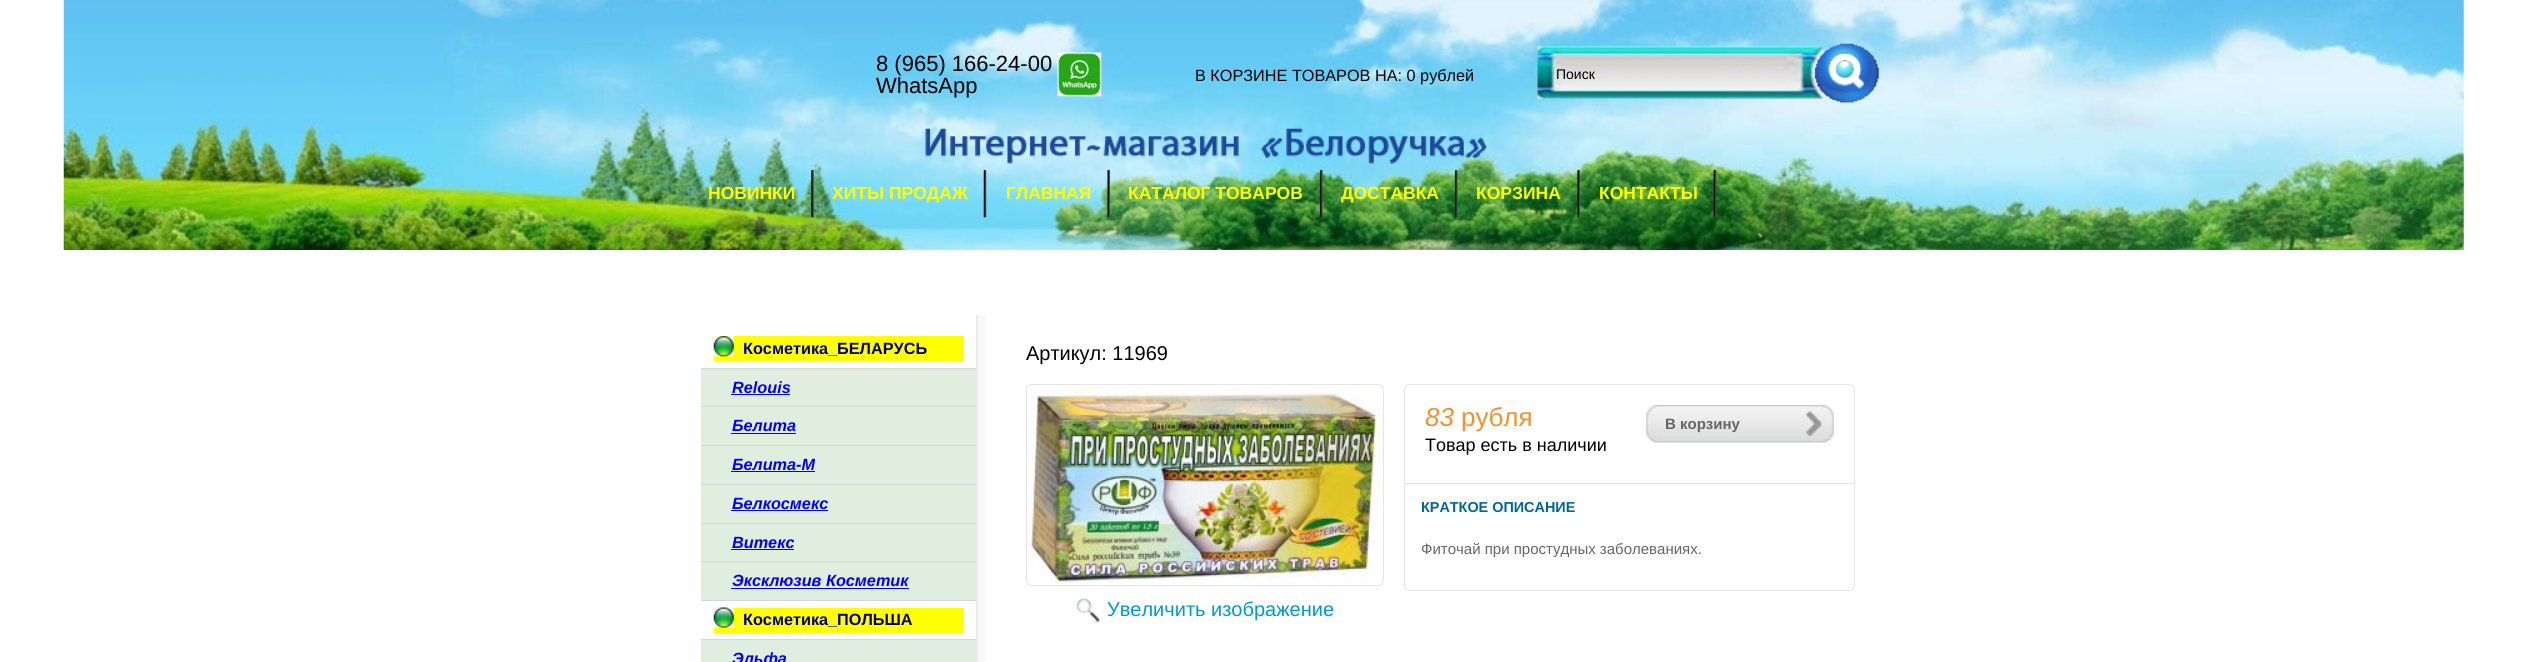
import math
import cairocffi as cairo

surface = cairo.ImageSurface(cairo.FORMAT_RGB24, 2527, 662)
ctx = cairo.Context(surface)
options = cairo.FontOptions()
options.set_hint_metrics(cairo.HINT_METRICS_OFF)
options.set_hint_style(cairo.HINT_STYLE_NONE)
ctx.set_font_options(options)
ctx.set_miter_limit(4)


def rgb(r, g, b):
    ctx.set_source_rgb(r / 255, g / 255, b / 255)


def face(family, size, italic, bold):
    ctx.select_font_face(family, cairo.FONT_SLANT_ITALIC if italic else cairo.FONT_SLANT_NORMAL, cairo.FONT_WEIGHT_BOLD if bold else cairo.FONT_WEIGHT_NORMAL)
    ctx.set_font_size(size)


def label(x, y, s):
    ctx.move_to(x, y)
    ctx.show_text(s)


def rect(x, y, w, h):
    ctx.rectangle(x, y, w, h)
    ctx.fill()


def rrect(x, y, w, h, r):
    ctx.new_sub_path()
    for i, (u, v) in enumerate([(x + w - r, y + h - r), (x + r, y + h - r), (x + r, y + r), (x + w - r, y + r)]):
        ctx.arc(u, v, r, i * math.pi / 2, (i + 1) * math.pi / 2)
    ctx.close_path()


def image(path, x, y, w, h):
    ctx.save()
    ctx.set_source_surface(cairo.ImageSurface.create_from_png(path), x, y)
    ctx.rectangle(x, y, w, h)
    ctx.fill()
    ctx.restore()


rgb(255, 255, 255)
ctx.paint()
image('image0.png', 63, 0, 2401, 250)
face('Liberation Sans', 22, 0, 0)
rgb(0, 0, 0)
label(876, 71, '8 (965) 166-24-00')
label(876, 93, 'WhatsApp')
image('image1.png', 1057, 52, 45, 45)
face('Liberation Sans', 16.25, 0, 0)
label(1195, 81, 'В КОРЗИНЕ ТОВАРОВ НА: 0 рублей')
face('Liberation Sans', 14, 0, 0)
label(1556, 79, 'Поиск')
image('image2.png', 811, 169, 3, 49)
face('Liberation Sans', 17.5, 0, 1)
rgb(255, 255, 0)
label(708, 199, 'НОВИНКИ')
image('image3.png', 983, 169, 4, 49)
label(832, 199, 'ХИТЫ ПРОДАЖ')
image('image4.png', 1107, 169, 3, 49)
label(1006, 199, 'ГЛАВНАЯ')
image('image5.png', 1319, 169, 4, 49)
label(1128, 199, 'КАТАЛОГ ТОВАРОВ')
image('image6.png', 1454, 169, 4, 49)
label(1341, 199, 'ДОСТАВКА')
image('image7.png', 1577, 169, 3, 49)
label(1476, 199, 'КОРЗИНА')
image('image8.png', 1713, 169, 4, 49)
label(1599, 199, 'КОНТАКТЫ')
image('image9.png', 976, 315, 10, 347)
rgb(214, 214, 214)
rect(701, 368, 275, 1)
rgb(255, 255, 0)
rect(714, 336, 250, 25)
image('image10.png', 713, 336, 21, 21)
face('Liberation Sans', 16.25, 0, 1)
rgb(0, 0, 128)
label(743, 354, 'Косметика_БЕЛАРУСЬ')
rgb(224, 238, 224)
rect(701, 369, 275, 76)
rgb(214, 214, 214)
rect(701, 406, 275, 1)
face('Liberation Sans', 16.25, 1, 1)
rgb(0, 0, 255)
label(732, 393, 'Relouis')
rect(731, 394, 59, 1)
rgb(214, 214, 214)
rect(701, 445, 275, 1)
rgb(0, 0, 255)
label(732, 431, 'Белита')
rect(731, 433, 65, 1)
rgb(224, 238, 224)
rect(701, 446, 275, 38)
rgb(214, 214, 214)
rect(701, 484, 275, 1)
rgb(0, 0, 255)
label(732, 470, 'Белита-М')
rect(731, 471, 84, 1)
rgb(224, 238, 224)
rect(701, 485, 275, 38)
rgb(214, 214, 214)
rect(701, 523, 275, 1)
rgb(0, 0, 255)
label(732, 509, 'Белкосмекс')
rect(731, 510, 97, 1)
rgb(224, 238, 224)
rect(701, 524, 275, 76)
rgb(214, 214, 214)
rect(701, 561, 275, 1)
rgb(0, 0, 255)
label(732, 548, 'Витекс')
rect(731, 549, 63, 1)
rgb(214, 214, 214)
rect(701, 600, 275, 1)
rgb(0, 0, 255)
label(732, 586, 'Эксклюзив Косметик')
rect(731, 588, 178, 1)
rgb(214, 214, 214)
rect(701, 639, 275, 1)
rgb(255, 255, 0)
rect(714, 608, 250, 25)
image('image11.png', 713, 607, 21, 21)
face('Liberation Sans', 16.25, 0, 1)
rgb(0, 0, 128)
label(743, 625, 'Косметика_ПОЛЬША')
rgb(224, 238, 224)
rect(701, 640, 275, 22)
face('Liberation Sans', 16.25, 1, 1)
rgb(0, 0, 255)
label(732, 664, 'Эльфа')
face('Liberation Sans', 20, 0, 0)
rgb(0, 0, 0)
label(1026, 360, 'Артикул: 11969')
rrect(1404.5, 384.5, 450, 206, 5.5)
rgb(229, 229, 229)
ctx.set_line_width(1)
ctx.stroke()
face('Liberation Sans', 26, 1, 0)
rgb(242, 145, 45)
label(1425, 426, '83')
face('Liberation Sans', 26, 0, 0)
label(1461, 426, 'рубля')
face('Liberation Sans', 18, 0, 0)
rgb(0, 0, 0)
label(1425, 451, 'Товар есть в наличии')
image('image12.png', 1646, 405, 188, 38)
face('Liberation Sans', 15, 0, 1)
rgb(102, 102, 102)
label(1665, 429, 'В корзину')
rgb(229, 229, 229)
rect(1405, 483, 450, 1)
face('Liberation Sans', 14.4, 0, 1)
rgb(0, 102, 153)
label(1421, 512, 'КРАТКОЕ ОПИСАНИЕ')
face('Liberation Sans', 15, 0, 0)
rgb(102, 102, 102)
label(1421, 554, 'Фиточай при простудных заболеваниях.')
rrect(1026.5, 384.5, 357, 201, 5.5)
rgb(229, 229, 229)
ctx.stroke()
image('image13.png', 1030, 387, 350, 195)
image('image14.png', 1076, 597, 25, 26)
face('Liberation Sans', 20, 0, 0)
rgb(0, 153, 204)
label(1107, 616, 'Увеличить изображение')
surface.write_to_png('render.png')
